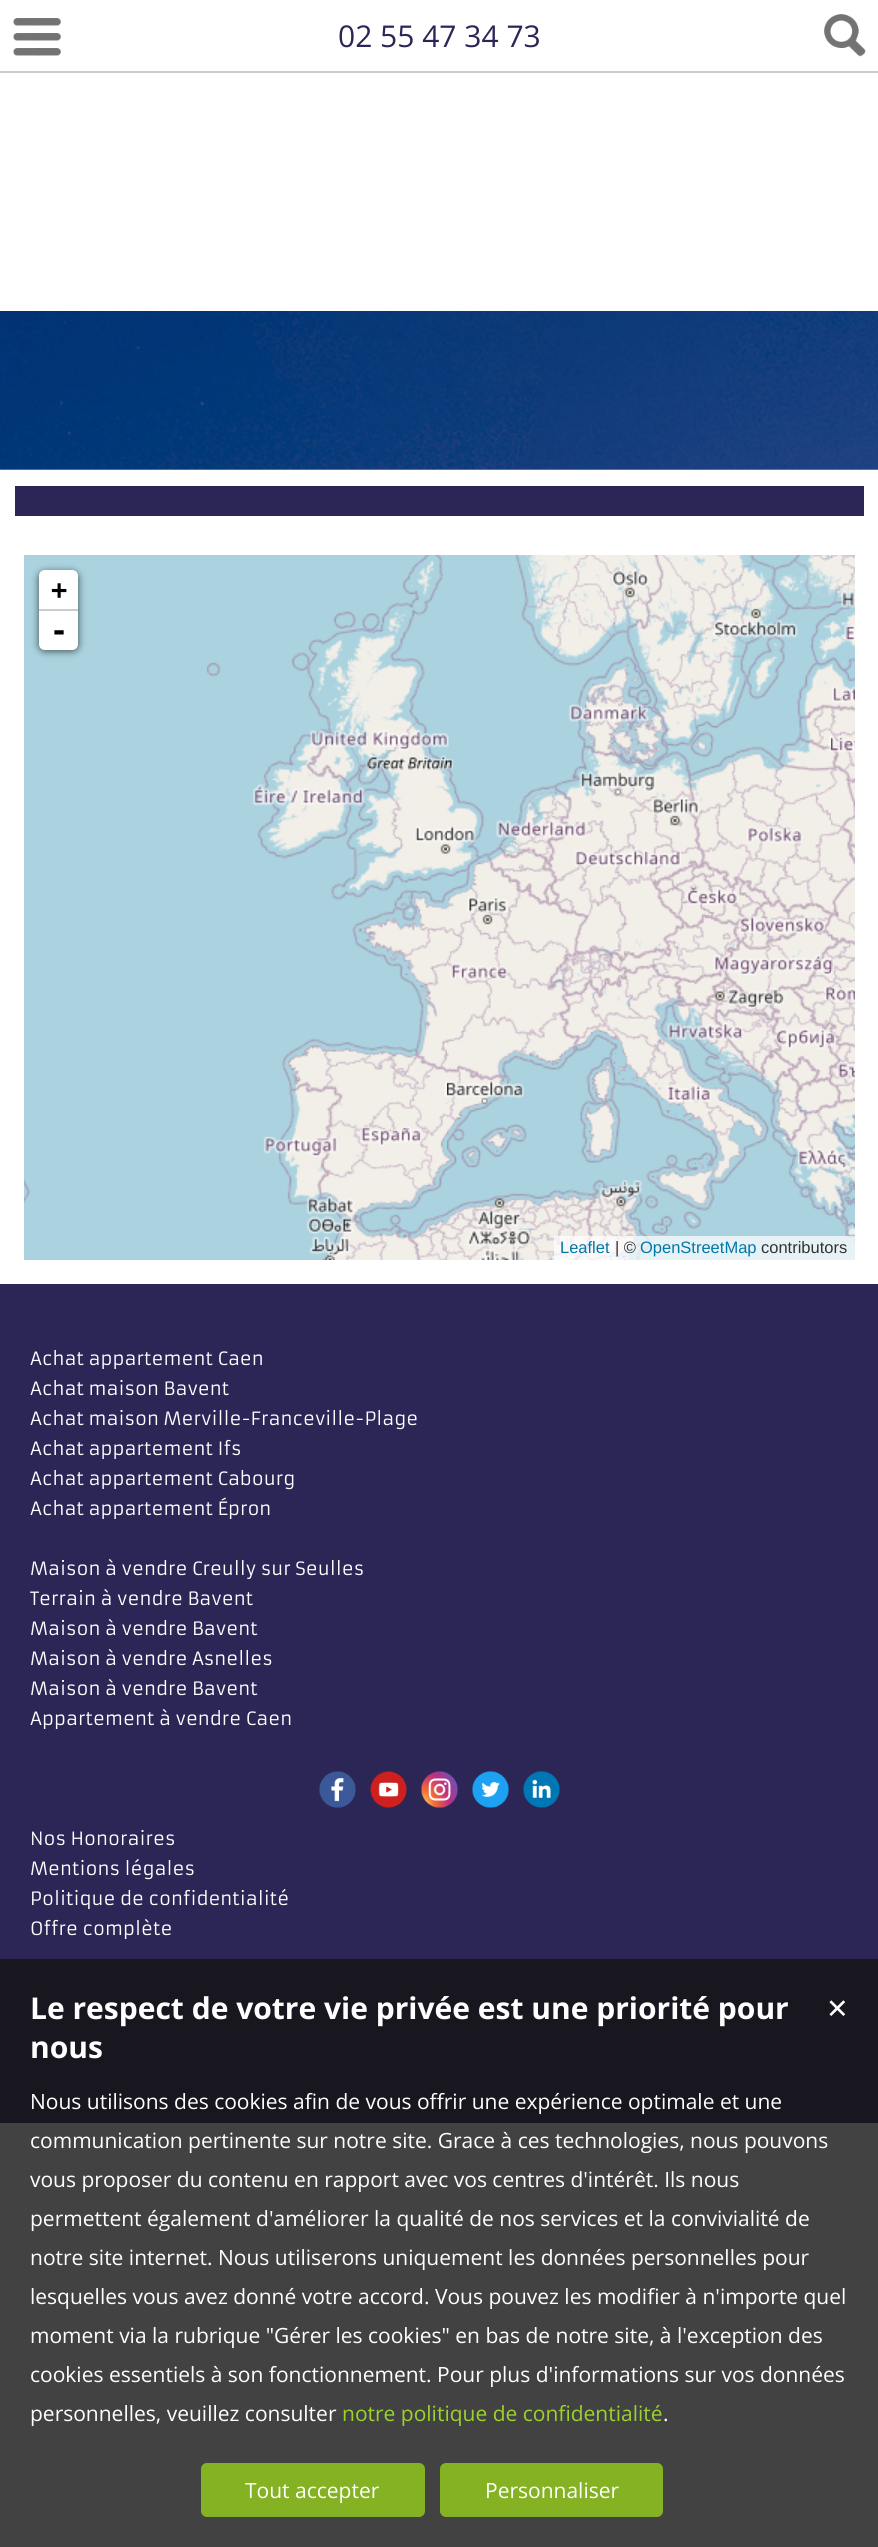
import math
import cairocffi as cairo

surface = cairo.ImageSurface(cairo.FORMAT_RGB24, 878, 2547)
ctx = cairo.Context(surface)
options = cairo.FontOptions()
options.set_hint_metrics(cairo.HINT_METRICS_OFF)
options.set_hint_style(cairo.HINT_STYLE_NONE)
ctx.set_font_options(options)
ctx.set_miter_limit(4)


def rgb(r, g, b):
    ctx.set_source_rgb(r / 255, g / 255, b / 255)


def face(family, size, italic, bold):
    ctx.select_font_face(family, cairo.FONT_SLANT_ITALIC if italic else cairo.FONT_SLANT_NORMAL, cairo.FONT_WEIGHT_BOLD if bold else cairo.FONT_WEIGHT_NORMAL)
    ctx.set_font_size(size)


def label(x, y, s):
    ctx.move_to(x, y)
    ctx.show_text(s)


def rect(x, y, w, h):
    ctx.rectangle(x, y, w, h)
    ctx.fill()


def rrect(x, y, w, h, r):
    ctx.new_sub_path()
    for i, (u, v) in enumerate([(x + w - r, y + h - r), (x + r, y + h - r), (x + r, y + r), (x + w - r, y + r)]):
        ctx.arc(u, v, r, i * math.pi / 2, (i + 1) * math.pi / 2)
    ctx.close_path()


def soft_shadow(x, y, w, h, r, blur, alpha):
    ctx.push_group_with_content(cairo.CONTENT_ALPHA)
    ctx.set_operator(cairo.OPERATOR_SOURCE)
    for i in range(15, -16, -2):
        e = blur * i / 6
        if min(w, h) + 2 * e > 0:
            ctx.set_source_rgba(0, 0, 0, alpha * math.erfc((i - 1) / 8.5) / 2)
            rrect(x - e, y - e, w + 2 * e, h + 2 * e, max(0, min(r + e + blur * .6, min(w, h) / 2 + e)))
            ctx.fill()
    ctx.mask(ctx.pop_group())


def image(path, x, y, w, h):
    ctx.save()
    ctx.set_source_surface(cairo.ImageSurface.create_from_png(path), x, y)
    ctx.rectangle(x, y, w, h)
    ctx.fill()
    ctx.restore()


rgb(255, 255, 255)
ctx.paint()
rgb(166, 166, 166)
rect(0, 469, 878, 1)
rgb(204, 204, 204)
rect(0, 71, 878, 2)
image('image0.png', 13, 18, 48, 38)
face('Open Sans', 30, 0, 0)
rgb(44, 38, 86)
label(338, 47, '02 55 47 34 73')
image('image1.png', 824, 14, 42, 43)
image('image2.png', 0, 311, 878, 159)
rect(15, 486, 849, 30)
rgb(170, 211, 223)
rect(24, 555, 39, 555)
image('image3.png', 63, 555, 384, 171)
image('image4.png', 447, 555, 384, 171)
image('image5.png', 831, 555, 24, 171)
image('image6.png', 63, 726, 384, 384)
image('image7.png', 447, 726, 384, 384)
image('image8.png', 831, 726, 24, 384)
image('image9.png', 24, 1110, 39, 150)
image('image10.png', 63, 1110, 384, 150)
image('image11.png', 447, 1110, 384, 150)
image('image12.png', 831, 1110, 24, 150)
rgb(0, 0, 0)
soft_shadow(39, 572, 39, 79, 6, 4, 0.65)
rgb(255, 255, 255)
ctx.new_path()
ctx.move_to(45, 570)
ctx.line_to(72, 570)
ctx.curve_to(75.5, 570, 78, 572.5, 78, 576)
ctx.line_to(78, 611)
ctx.line_to(39, 611)
ctx.line_to(39, 576)
ctx.curve_to(39, 572.5, 41.5, 570, 45, 570)
ctx.close_path()
ctx.fill()
rgb(204, 204, 204)
rect(39, 609, 39, 2)
face('DejaVu Sans Mono', 27, 0, 1)
rgb(0, 0, 0)
label(51, 599, '+')
rgb(255, 255, 255)
ctx.new_path()
ctx.move_to(39, 611)
ctx.line_to(78, 611)
ctx.line_to(78, 644)
ctx.curve_to(78, 647.5, 75.5, 650, 72, 650)
ctx.line_to(45, 650)
ctx.curve_to(41.5, 650, 39, 647.5, 39, 644)
ctx.close_path()
ctx.fill()
face('DejaVu Sans Mono', 30, 0, 1)
rgb(0, 0, 0)
label(50, 641, '-')
ctx.set_source_rgba(1, 1, 1, 0.7)
rect(554, 1236, 301, 24)
face('Liberation Sans', 16.5, 0, 0)
rgb(0, 120, 168)
label(560, 1253, 'Leaflet')
rgb(51, 51, 51)
label(615, 1253, '| ©')
rgb(0, 120, 168)
label(640, 1253, 'OpenStreetMap')
rgb(51, 51, 51)
label(761, 1253, 'contributors')
rgb(44, 38, 86)
rect(0, 1284, 878, 839)
face('Armata', 18, 0, 0)
rgb(255, 255, 255)
label(30, 1365, 'Achat appartement Caen')
label(30, 1395, 'Achat maison Bavent')
label(30, 1425, 'Achat maison Merville-Franceville-Plage')
label(30, 1455, 'Achat appartement Ifs')
label(30, 1485, 'Achat appartement Cabourg')
label(30, 1515, 'Achat appartement Épron')
label(30, 1575, 'Maison à vendre Creully sur Seulles')
label(30, 1605, 'Terrain à vendre Bavent')
label(30, 1635, 'Maison à vendre Bavent')
label(30, 1665, 'Maison à vendre Asnelles')
label(30, 1695, 'Maison à vendre Bavent')
label(30, 1725, 'Appartement à vendre Caen')
image('image13.png', 319, 1771, 37, 37)
image('image14.png', 370, 1771, 37, 37)
image('image15.png', 421, 1771, 37, 37)
image('image16.png', 472, 1771, 37, 37)
image('image17.png', 523, 1771, 37, 37)
label(30, 1845, 'Nos Honoraires')
label(30, 1875, 'Mentions légales')
label(30, 1905, 'Politique de confidentialité')
label(30, 1935, 'Offre complète')
ctx.set_source_rgba(0.078, 0.078, 0.078, 0.8)
rect(0, 1959, 878, 588)
face('Open Sans', 30, 0, 1)
rgb(255, 255, 255)
label(30, 2019, 'Le respect de votre vie privée est une priorité pour')
label(30, 2058, 'nous')
face('DejaVu Sans', 27, 0, 0)
label(826, 2018, '✕')
face('Open Sans', 21, 0, 0)
label(30, 2109, 'Nous utilisons des cookies afin de vous offrir une expérience optimale et une')
label(30, 2148, 'communication pertinente sur notre site. Grace à ces technologies, nous pouvons')
label(30, 2187, 'vous proposer du contenu en rapport avec vos centres d\'intérêt. Ils nous')
label(30, 2226, 'permettent également d\'améliorer la qualité de nos services et la convivialité de')
label(30, 2265, 'notre site internet. Nous utiliserons uniquement les données personnelles pour')
label(30, 2304, 'lesquelles vous avez donné votre accord. Vous pouvez les modifier à n\'importe quel')
label(30, 2343, 'moment via la rubrique "Gérer les cookies" en bas de notre site, à l\'exception des')
label(30, 2382, 'cookies essentiels à son fonctionnement. Pour plus d\'informations sur vos données')
label(30, 2421, 'personnelles, veuillez consulter')
rgb(156, 210, 46)
label(342, 2421, 'notre politique de confidentialité')
rgb(255, 255, 255)
label(663, 2421, '.')
rgb(132, 178, 34)
rrect(201, 2463, 224, 54, 6)
ctx.fill()
rgb(255, 255, 255)
label(245, 2498, 'Tout accepter')
rgb(132, 178, 34)
rrect(440, 2463, 223, 54, 6)
ctx.fill()
rgb(255, 255, 255)
label(485, 2498, 'Personnaliser')
surface.write_to_png('render.png')
